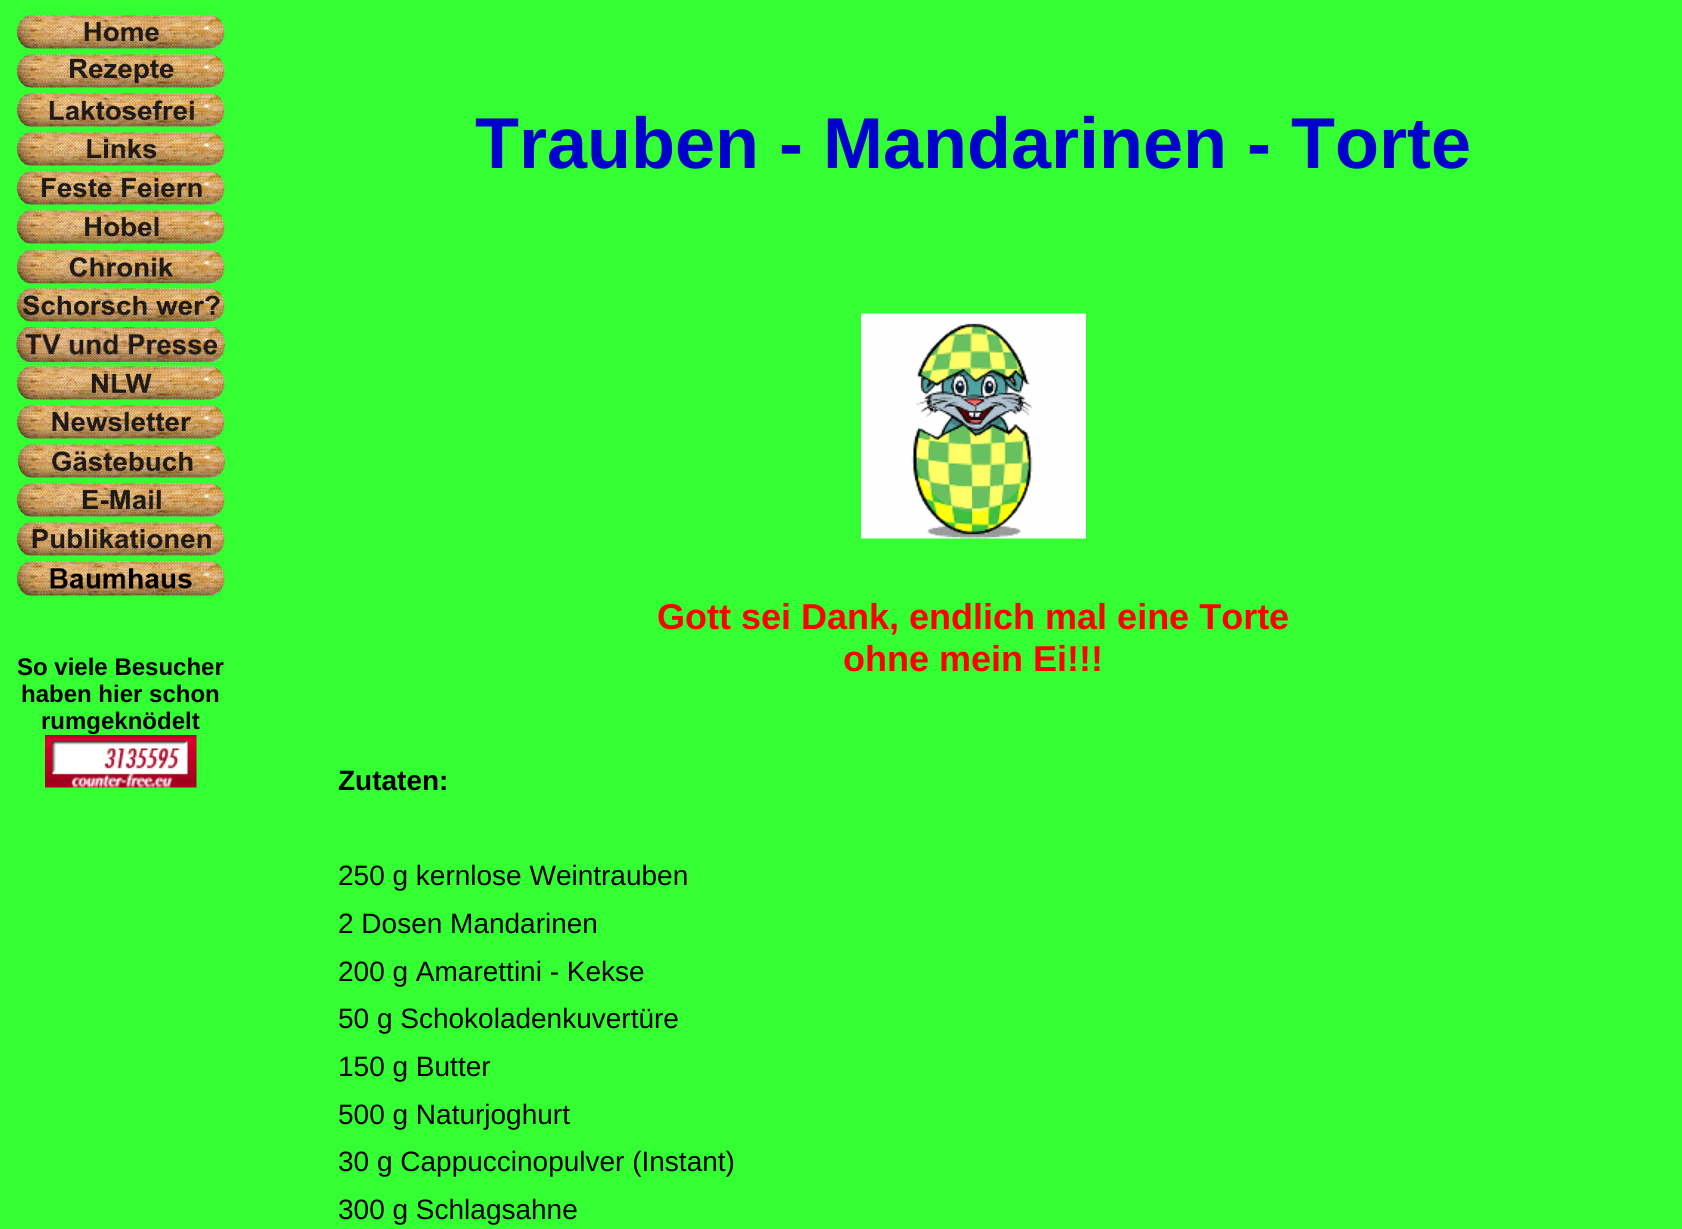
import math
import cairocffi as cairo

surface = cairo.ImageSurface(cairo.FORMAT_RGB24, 1682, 1229)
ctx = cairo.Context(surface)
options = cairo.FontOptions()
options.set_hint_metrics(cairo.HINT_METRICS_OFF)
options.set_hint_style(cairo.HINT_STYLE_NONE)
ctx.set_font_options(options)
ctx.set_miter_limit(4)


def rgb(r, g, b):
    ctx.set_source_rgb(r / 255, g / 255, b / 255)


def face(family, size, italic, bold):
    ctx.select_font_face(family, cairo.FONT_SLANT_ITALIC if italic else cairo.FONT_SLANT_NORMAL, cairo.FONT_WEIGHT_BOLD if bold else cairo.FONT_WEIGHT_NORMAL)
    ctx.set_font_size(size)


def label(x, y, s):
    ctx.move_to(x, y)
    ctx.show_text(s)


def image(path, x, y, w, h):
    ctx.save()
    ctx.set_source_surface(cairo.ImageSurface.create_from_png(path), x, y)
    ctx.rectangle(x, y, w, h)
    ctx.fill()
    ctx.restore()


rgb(51, 255, 51)
ctx.paint()
image('image0.png', 16, 15, 209, 34)
image('image1.png', 16, 54, 209, 34)
image('image2.png', 16, 93, 209, 34)
image('image3.png', 16, 132, 209, 34)
image('image4.png', 16, 171, 209, 34)
image('image5.png', 16, 210, 209, 34)
image('image6.png', 16, 249, 209, 35)
image('image7.png', 16, 288, 209, 34)
image('image8.png', 16, 327, 209, 39)
image('image9.png', 16, 366, 209, 34)
image('image10.png', 16, 405, 209, 34)
image('image11.png', 17, 444, 208, 34)
image('image12.png', 16, 483, 209, 34)
image('image13.png', 16, 522, 209, 34)
image('image14.png', 16, 561, 209, 39)
face('Liberation Sans', 24, 0, 1)
rgb(0, 0, 0)
label(17, 675, 'So viele Besucher')
label(21, 702, 'haben hier schon')
label(41, 729, 'rumgeknödelt')
image('image15.png', 45, 735, 152, 53)
face('Liberation Sans', 72, 0, 1)
rgb(0, 0, 204)
label(475, 168, 'Trauben - Mandarinen - Torte')
image('image16.png', 861, 313, 225, 226)
face('Liberation Sans', 36, 0, 1)
rgb(255, 0, 0)
label(657, 629, 'Gott sei Dank, endlich mal eine Torte')
label(843, 671, 'ohne mein Ei!!!')
face('Liberation Sans', 28, 0, 1)
rgb(0, 0, 0)
label(338, 790, 'Zutaten:')
face('Liberation Sans', 28, 0, 0)
label(338, 885, '250 g kernlose Weintrauben')
label(338, 933, '2 Dosen Mandarinen')
label(338, 981, '200 g Amarettini - Kekse')
label(338, 1028, '50 g Schokoladenkuvertüre')
label(338, 1076, '150 g Butter')
label(338, 1124, '500 g Naturjoghurt')
label(338, 1171, '30 g Cappuccinopulver (Instant)')
label(338, 1219, '300 g Schlagsahne')
surface.write_to_png('render.png')
